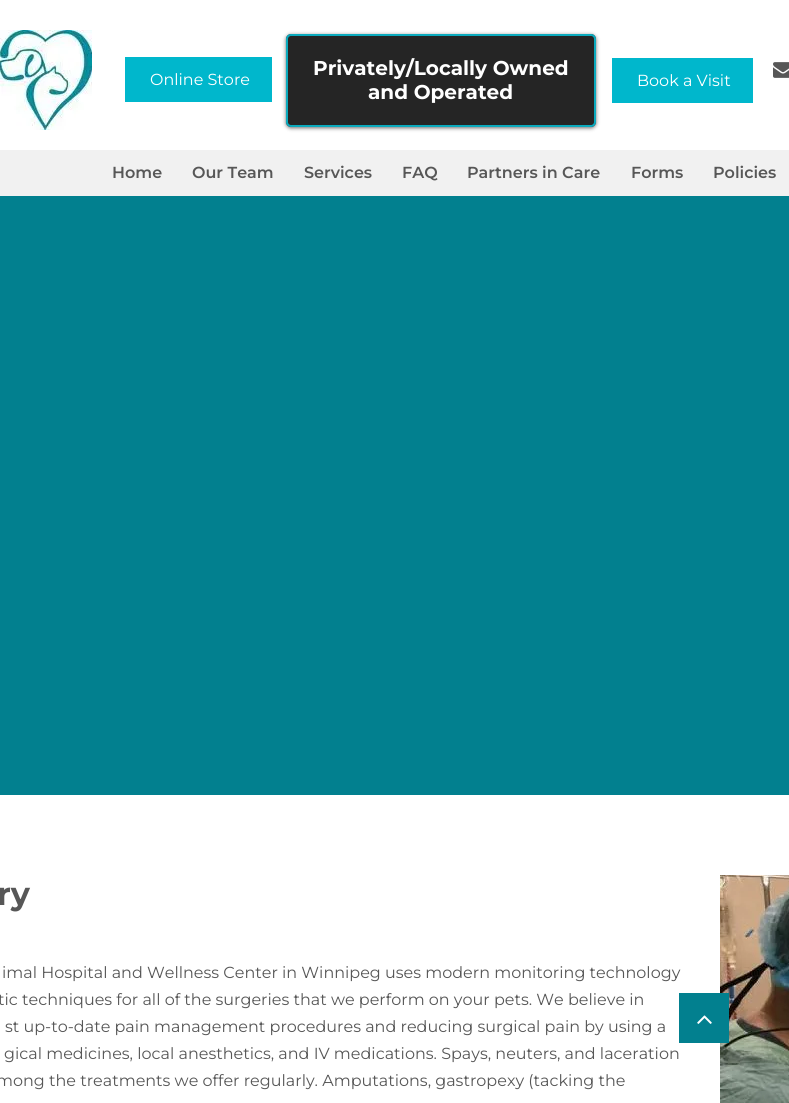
import math
import cairocffi as cairo

surface = cairo.ImageSurface(cairo.FORMAT_RGB24, 789, 1103)
ctx = cairo.Context(surface)
options = cairo.FontOptions()
options.set_hint_metrics(cairo.HINT_METRICS_OFF)
options.set_hint_style(cairo.HINT_STYLE_NONE)
ctx.set_font_options(options)
ctx.set_miter_limit(4)


def rgb(r, g, b):
    ctx.set_source_rgb(r / 255, g / 255, b / 255)


def face(family, size, italic, bold):
    ctx.select_font_face(family, cairo.FONT_SLANT_ITALIC if italic else cairo.FONT_SLANT_NORMAL, cairo.FONT_WEIGHT_BOLD if bold else cairo.FONT_WEIGHT_NORMAL)
    ctx.set_font_size(size)


def label(x, y, s):
    ctx.move_to(x, y)
    ctx.show_text(s)


def rect(x, y, w, h):
    ctx.rectangle(x, y, w, h)
    ctx.fill()


def rrect(x, y, w, h, r):
    ctx.new_sub_path()
    for i, (u, v) in enumerate([(x + w - r, y + h - r), (x + r, y + h - r), (x + r, y + r), (x + w - r, y + r)]):
        ctx.arc(u, v, r, i * math.pi / 2, (i + 1) * math.pi / 2)
    ctx.close_path()


def soft_shadow(x, y, w, h, r, blur, alpha):
    ctx.push_group_with_content(cairo.CONTENT_ALPHA)
    ctx.set_operator(cairo.OPERATOR_SOURCE)
    for i in range(15, -16, -2):
        e = blur * i / 6
        if min(w, h) + 2 * e > 0:
            ctx.set_source_rgba(0, 0, 0, alpha * math.erfc((i - 1) / 8.5) / 2)
            rrect(x - e, y - e, w + 2 * e, h + 2 * e, max(0, min(r + e + blur * .6, min(w, h) / 2 + e)))
            ctx.fill()
    ctx.mask(ctx.pop_group())


def image(path, x, y, w, h):
    ctx.save()
    ctx.set_source_surface(cairo.ImageSurface.create_from_png(path), x, y)
    ctx.rectangle(x, y, w, h)
    ctx.fill()
    ctx.restore()


rgb(255, 255, 255)
ctx.paint()
image('image0.png', 0, 30, 92, 100)
rgb(0, 0, 0)
soft_shadow(286, 35, 310, 93, 5, 2, 0.6)
rgb(37, 37, 37)
rrect(286, 34, 310, 93, 5)
ctx.fill()
rrect(287, 35, 308, 91, 4)
ctx.set_source_rgba(0.012, 0.831, 0.929, 0.76)
ctx.stroke()
face('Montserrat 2', 20, 0, 1)
rgb(255, 255, 255)
label(313, 75, 'Privately/Locally Owned')
label(368, 99, 'and Operated')
image('image1.png', 773, 62, 16, 16)
rgb(0, 183, 204)
rect(125, 57, 147, 45)
face('Montserrat', 16, 0, 0)
rgb(255, 255, 255)
label(150, 85, 'Online Store')
rgb(0, 183, 204)
rect(612, 58, 141, 45)
rgb(255, 255, 255)
label(637, 86, 'Book a Visit')
rgb(241, 241, 241)
rect(0, 150, 789, 46)
face('Montserrat SemiBold', 16, 0, 0)
rgb(87, 87, 87)
label(112, 178, 'Home')
label(192, 178, 'Our Team')
label(304, 178, 'Services')
label(402, 178, 'FAQ')
label(467, 178, 'Partners in Care')
label(631, 178, 'Forms')
label(713, 178, 'Policies')
rgb(2, 128, 143)
rect(0, 196, 789, 599)
face('Montserrat', 32, 0, 1)
rgb(87, 87, 87)
label(-3, 905, 'ry')
face('Montserrat', 16, 0, 0)
label(2, 978, 'imal Hospital and Wellness Center in Winnipeg uses modern monitoring technology')
label(-2, 1005, 'tic techniques for all of the surgeries that we perform on your pets. We believe in')
label(5, 1032, 'st up-to-date pain management procedures and reducing surgical pain by using a')
label(4, 1059, 'gical medicines, local anesthetics, and IV medications. Spays, neuters, and laceration')
label(-4, 1086, 'mong the treatments we offer regularly. Amputations, gastropexy (tacking the')
image('image2.png', 720, 875, 69, 228)
rgb(2, 128, 143)
rect(679, 993, 50, 50)
image('image3.png', 697, 1015, 15, 9)
surface.write_to_png('render.png')
